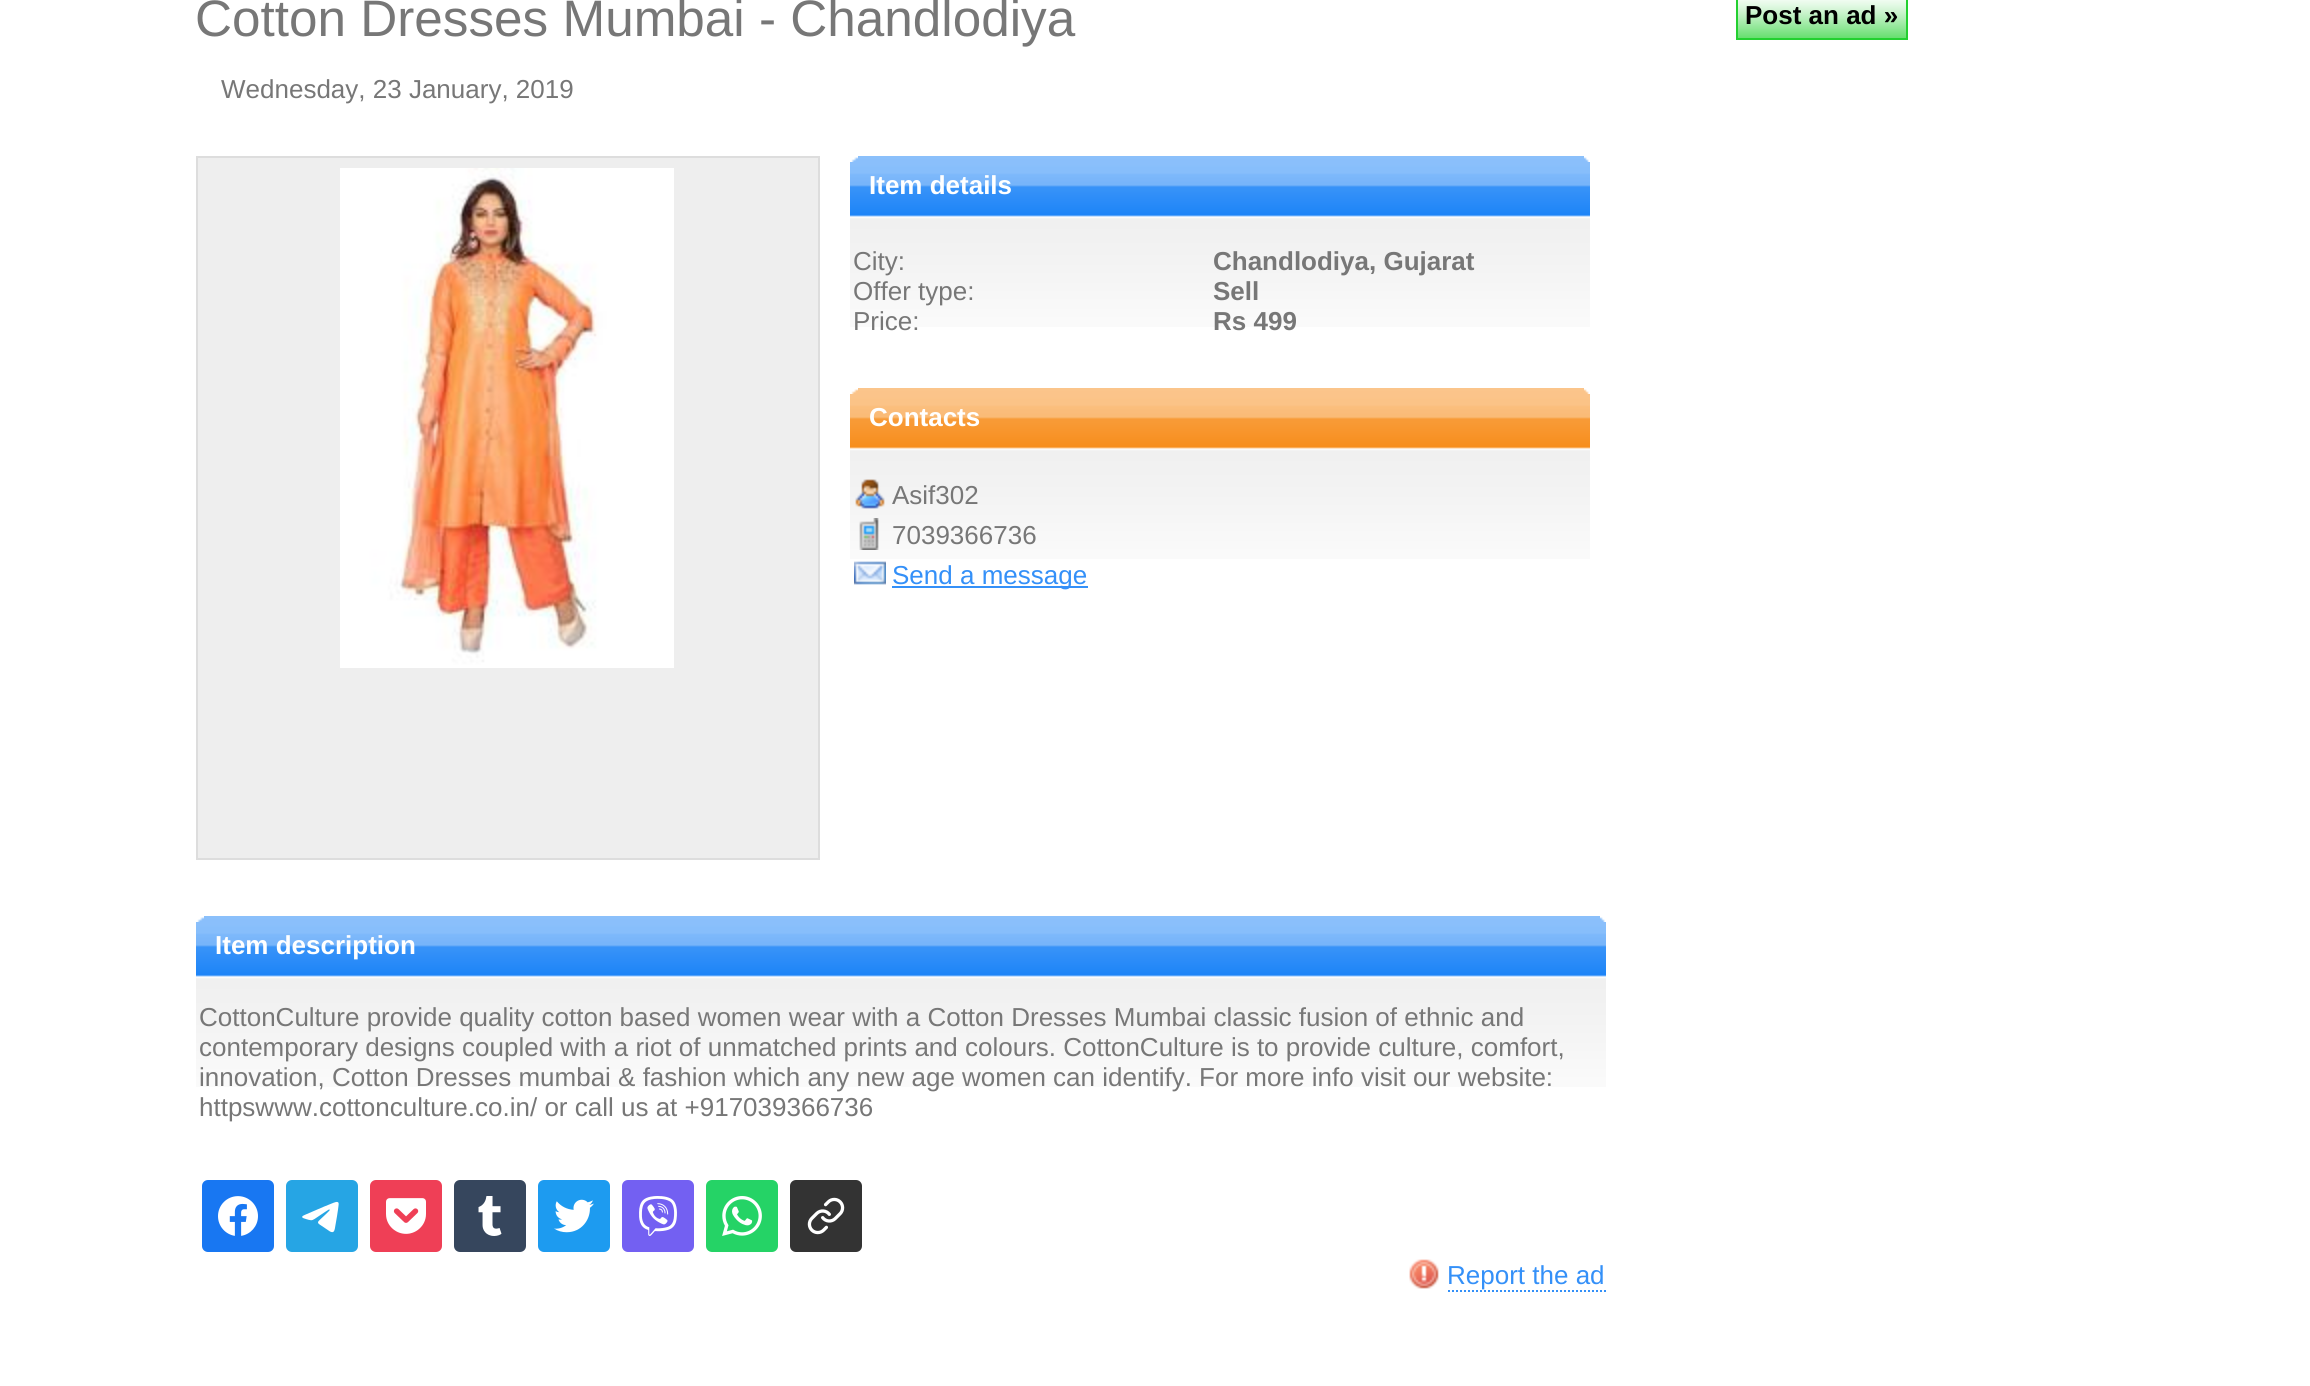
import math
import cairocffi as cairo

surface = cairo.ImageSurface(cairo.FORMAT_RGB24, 2310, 1386)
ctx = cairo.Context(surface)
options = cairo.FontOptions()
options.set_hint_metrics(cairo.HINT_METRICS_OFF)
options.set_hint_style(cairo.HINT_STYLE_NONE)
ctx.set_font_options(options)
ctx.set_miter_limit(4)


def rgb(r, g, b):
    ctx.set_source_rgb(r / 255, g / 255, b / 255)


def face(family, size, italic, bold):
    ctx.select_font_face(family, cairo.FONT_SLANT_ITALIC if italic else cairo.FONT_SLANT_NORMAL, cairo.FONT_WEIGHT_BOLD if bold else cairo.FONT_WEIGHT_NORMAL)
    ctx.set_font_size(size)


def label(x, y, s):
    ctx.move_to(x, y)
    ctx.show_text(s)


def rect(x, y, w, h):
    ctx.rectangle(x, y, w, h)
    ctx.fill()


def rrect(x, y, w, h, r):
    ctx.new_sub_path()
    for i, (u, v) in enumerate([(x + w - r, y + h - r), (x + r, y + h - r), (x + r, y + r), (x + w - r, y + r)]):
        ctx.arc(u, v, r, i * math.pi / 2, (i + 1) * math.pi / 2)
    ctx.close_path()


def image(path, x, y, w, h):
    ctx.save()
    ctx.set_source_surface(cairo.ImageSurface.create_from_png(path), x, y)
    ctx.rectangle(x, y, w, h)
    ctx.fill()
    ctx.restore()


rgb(255, 255, 255)
ctx.paint()
face('Liberation Sans', 51.25, 0, 0)
rgb(119, 119, 119)
label(195, 36, 'Cotton Dresses Mumbai - Chandlodiya')
face('Liberation Sans', 26, 0, 0)
label(221, 98, 'Wednesday, 23 January, 2019')
rgb(238, 238, 238)
ctx.rectangle(197, 157, 622, 702)
ctx.fill_preserve()
rgb(221, 221, 221)
ctx.stroke()
image('image0.png', 340, 168, 334, 500)
image('image1.png', 850, 156, 740, 171)
image('image2.png', 1584, 156, 6, 6)
image('image3.png', 850, 156, 8, 6)
face('Liberation Sans', 26, 0, 1)
rgb(255, 255, 255)
label(869, 194, 'Item details')
face('Liberation Sans', 26, 0, 0)
rgb(119, 119, 119)
label(853, 270, 'City:')
face('Liberation Sans', 26, 0, 1)
label(1213, 270, 'Chandlodiya, Gujarat')
face('Liberation Sans', 26, 0, 0)
label(853, 300, 'Offer type:')
face('Liberation Sans', 26, 0, 1)
label(1213, 300, 'Sell')
face('Liberation Sans', 26, 0, 0)
label(853, 330, 'Price:')
face('Liberation Sans', 26, 0, 1)
label(1213, 330, 'Rs 499')
image('image4.png', 850, 388, 740, 171)
image('image5.png', 1584, 388, 6, 6)
image('image6.png', 850, 388, 8, 6)
rgb(255, 255, 255)
label(869, 426, 'Contacts')
image('image7.png', 855, 479, 30, 30)
face('Liberation Sans', 26, 0, 0)
rgb(119, 119, 119)
label(892, 504, 'Asif302')
image('image8.png', 859, 518, 20, 32)
label(892, 544, '7039366736')
image('image9.png', 854, 561, 32, 24)
rgb(52, 144, 248)
rect(892, 586, 196, 2)
label(892, 584, 'Send a message')
image('image10.png', 196, 916, 1410, 171)
image('image2.png', 1600, 916, 6, 6)
image('image3.png', 196, 916, 8, 6)
face('Liberation Sans', 26, 0, 1)
rgb(255, 255, 255)
label(215, 954, 'Item description')
face('Liberation Sans', 26, 0, 0)
rgb(119, 119, 119)
label(199, 1026, 'CottonCulture provide quality cotton based women wear with a Cotton Dresses Mumbai classic fusion of ethnic and')
label(199, 1056, 'contemporary designs coupled with a riot of unmatched prints and colours. CottonCulture is to provide culture, comfort,')
label(199, 1086, 'innovation, Cotton Dresses mumbai & fashion which any new age women can identify. For more info visit our website:')
label(199, 1116, 'httpswww.cottonculture.co.in/ or call us at +917039366736')
rgb(24, 119, 242)
rrect(202, 1180, 72, 72, 6)
ctx.fill()
image('image11.png', 218, 1196, 40, 40)
rgb(38, 165, 228)
rrect(286, 1180, 72, 72, 6)
ctx.fill()
image('image12.png', 302, 1201, 37, 32)
rgb(239, 63, 86)
rrect(370, 1180, 72, 72, 6)
ctx.fill()
image('image13.png', 386, 1198, 40, 36)
rgb(54, 70, 93)
rrect(454, 1180, 72, 72, 6)
ctx.fill()
image('image14.png', 478, 1196, 24, 40)
rgb(29, 155, 240)
rrect(538, 1180, 72, 72, 6)
ctx.fill()
image('image15.png', 554, 1199, 40, 34)
rgb(115, 96, 242)
rrect(622, 1180, 72, 72, 6)
ctx.fill()
image('image16.png', 639, 1196, 38, 40)
rgb(37, 211, 102)
rrect(706, 1180, 72, 72, 6)
ctx.fill()
image('image17.png', 722, 1196, 40, 40)
rgb(51, 51, 51)
rrect(790, 1180, 72, 72, 6)
ctx.fill()
image('image18.png', 807, 1197, 38, 38)
image('image19.png', 1409, 1259, 30, 30)
rgb(52, 144, 248)
label(1447, 1284, 'Report the ad')
ctx.new_path()
ctx.move_to(1448, 1291)
ctx.line_to(1606, 1291)
ctx.set_dash([2, 2])
ctx.stroke()
image('image20.png', 1738, 0, 168, 38)
ctx.rectangle(1737, -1, 170, 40)
rgb(35, 208, 48)
ctx.set_dash([])
ctx.stroke()
face('Liberation Sans', 26, 0, 1)
rgb(0, 0, 0)
label(1745, 24, 'Post an ad »')
surface.write_to_png('render.png')
